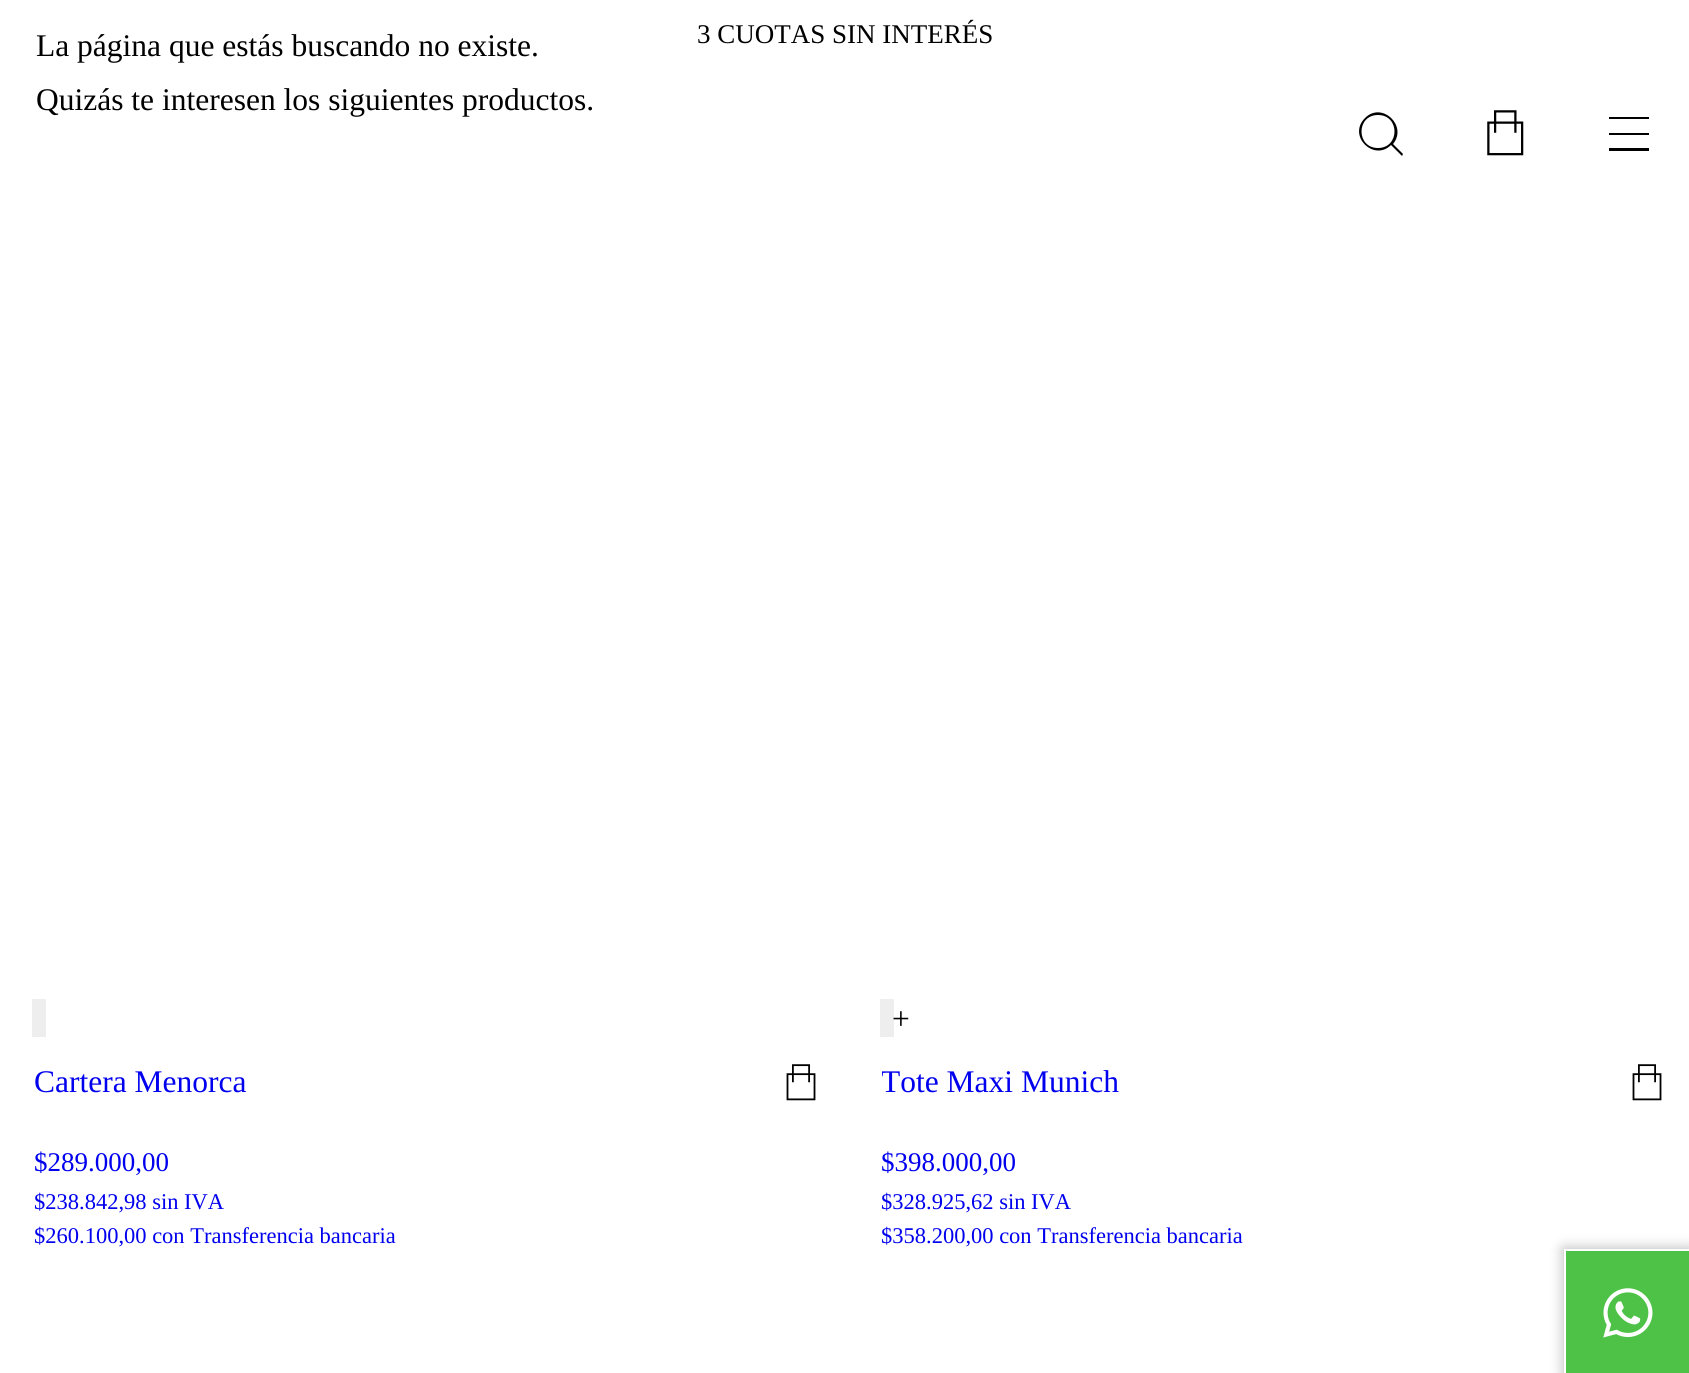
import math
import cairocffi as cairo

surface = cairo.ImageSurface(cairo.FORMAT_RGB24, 1689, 1373)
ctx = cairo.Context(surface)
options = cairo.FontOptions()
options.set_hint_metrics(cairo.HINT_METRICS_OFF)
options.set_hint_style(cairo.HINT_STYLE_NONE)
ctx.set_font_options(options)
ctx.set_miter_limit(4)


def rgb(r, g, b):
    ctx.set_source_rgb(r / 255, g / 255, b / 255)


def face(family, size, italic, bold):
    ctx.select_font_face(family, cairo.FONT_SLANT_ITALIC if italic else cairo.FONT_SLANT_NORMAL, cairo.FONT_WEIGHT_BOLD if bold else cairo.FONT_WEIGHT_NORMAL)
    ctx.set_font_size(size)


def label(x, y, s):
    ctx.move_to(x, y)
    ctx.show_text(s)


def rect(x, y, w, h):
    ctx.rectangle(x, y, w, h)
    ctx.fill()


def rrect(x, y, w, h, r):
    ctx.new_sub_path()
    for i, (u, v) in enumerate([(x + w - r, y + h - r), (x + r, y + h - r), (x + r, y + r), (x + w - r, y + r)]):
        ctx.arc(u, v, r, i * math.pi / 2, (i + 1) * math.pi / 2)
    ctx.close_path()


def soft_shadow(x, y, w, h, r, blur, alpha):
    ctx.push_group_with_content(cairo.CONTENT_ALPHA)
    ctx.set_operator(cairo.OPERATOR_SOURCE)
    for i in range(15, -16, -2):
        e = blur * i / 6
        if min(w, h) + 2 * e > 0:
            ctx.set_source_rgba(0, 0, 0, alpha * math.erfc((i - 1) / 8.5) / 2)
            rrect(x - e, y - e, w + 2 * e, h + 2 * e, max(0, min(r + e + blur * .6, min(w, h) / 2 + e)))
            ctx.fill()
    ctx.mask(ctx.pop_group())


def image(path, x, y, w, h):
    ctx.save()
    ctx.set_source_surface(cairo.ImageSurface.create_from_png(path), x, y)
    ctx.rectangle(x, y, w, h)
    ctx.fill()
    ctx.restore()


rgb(255, 255, 255)
ctx.paint()
face('Liberation Serif', 27, 0, 0)
rgb(0, 0, 0)
label(697, 43, '3 CUOTAS SIN INTERÉS')
ctx.new_path()
ctx.move_to(1403, 154)
ctx.line_to(1393, 144)
ctx.curve_to(1408, 126, 1382, 101, 1365, 118)
ctx.curve_to(1347, 136, 1374, 162, 1391, 145)
ctx.line_to(1402, 156)
ctx.close_path()
ctx.move_to(1378, 148)
ctx.curve_to(1356, 148, 1356, 115, 1378, 115)
ctx.curve_to(1400, 115, 1400, 148, 1378, 148)
ctx.close_path()
ctx.fill()
image('image0.png', 1487, 110, 37, 46)
ctx.new_path()
ctx.move_to(1649, 119)
ctx.line_to(1609, 119)
ctx.line_to(1609, 117)
ctx.line_to(1649, 117)
ctx.close_path()
ctx.move_to(1649, 135)
ctx.line_to(1609, 135)
ctx.line_to(1609, 133)
ctx.line_to(1649, 133)
ctx.close_path()
ctx.move_to(1649, 151)
ctx.line_to(1609, 151)
ctx.line_to(1609, 148)
ctx.line_to(1649, 148)
ctx.close_path()
ctx.fill()
face('Liberation Serif', 31.5, 0, 0)
label(36, 56, 'La página que estás buscando no existe.')
label(36, 110, 'Quizás te interesen los siguientes productos.')
rgb(238, 238, 238)
rect(32, 999, 14, 38)
rgb(0, 0, 238)
label(34, 1092, 'Cartera Menorca')
image('image1.png', 786, 1064, 30, 37)
face('Liberation Serif', 27, 0, 0)
label(34, 1171, '$289.000,00')
face('Liberation Serif', 22.5, 0, 0)
label(34, 1209, '$238.842,98 sin IVA')
label(34, 1243, '$260.100,00 con Transferencia bancaria')
rgb(238, 238, 238)
rect(880, 999, 14, 38)
face('Liberation Serif', 31.5, 0, 0)
rgb(0, 0, 0)
label(892, 1029, '+')
ctx.save()
ctx.rectangle(882, 1064, 684, 36)
ctx.clip()
rgb(0, 0, 238)
label(881, 1092, 'Tote Maxi Munich')
ctx.restore()
image('image1.png', 1632, 1064, 30, 37)
face('Liberation Serif', 27, 0, 0)
rgb(0, 0, 238)
label(881, 1171, '$398.000,00')
face('Liberation Serif', 22.5, 0, 0)
label(881, 1209, '$328.925,62 sin IVA')
label(881, 1243, '$358.200,00 con Transferencia bancaria')
rgb(0, 0, 0)
soft_shadow(1564, 1249, 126, 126, 0, 7, 0.3)
rgb(77, 194, 71)
rect(1566, 1251, 123, 122)
rgb(255, 255, 255)
rect(1564, 1249, 125, 2)
rect(1564, 1249, 2, 124)
image('image2.png', 1603, 1288, 50, 50)
surface.write_to_png('render.png')
